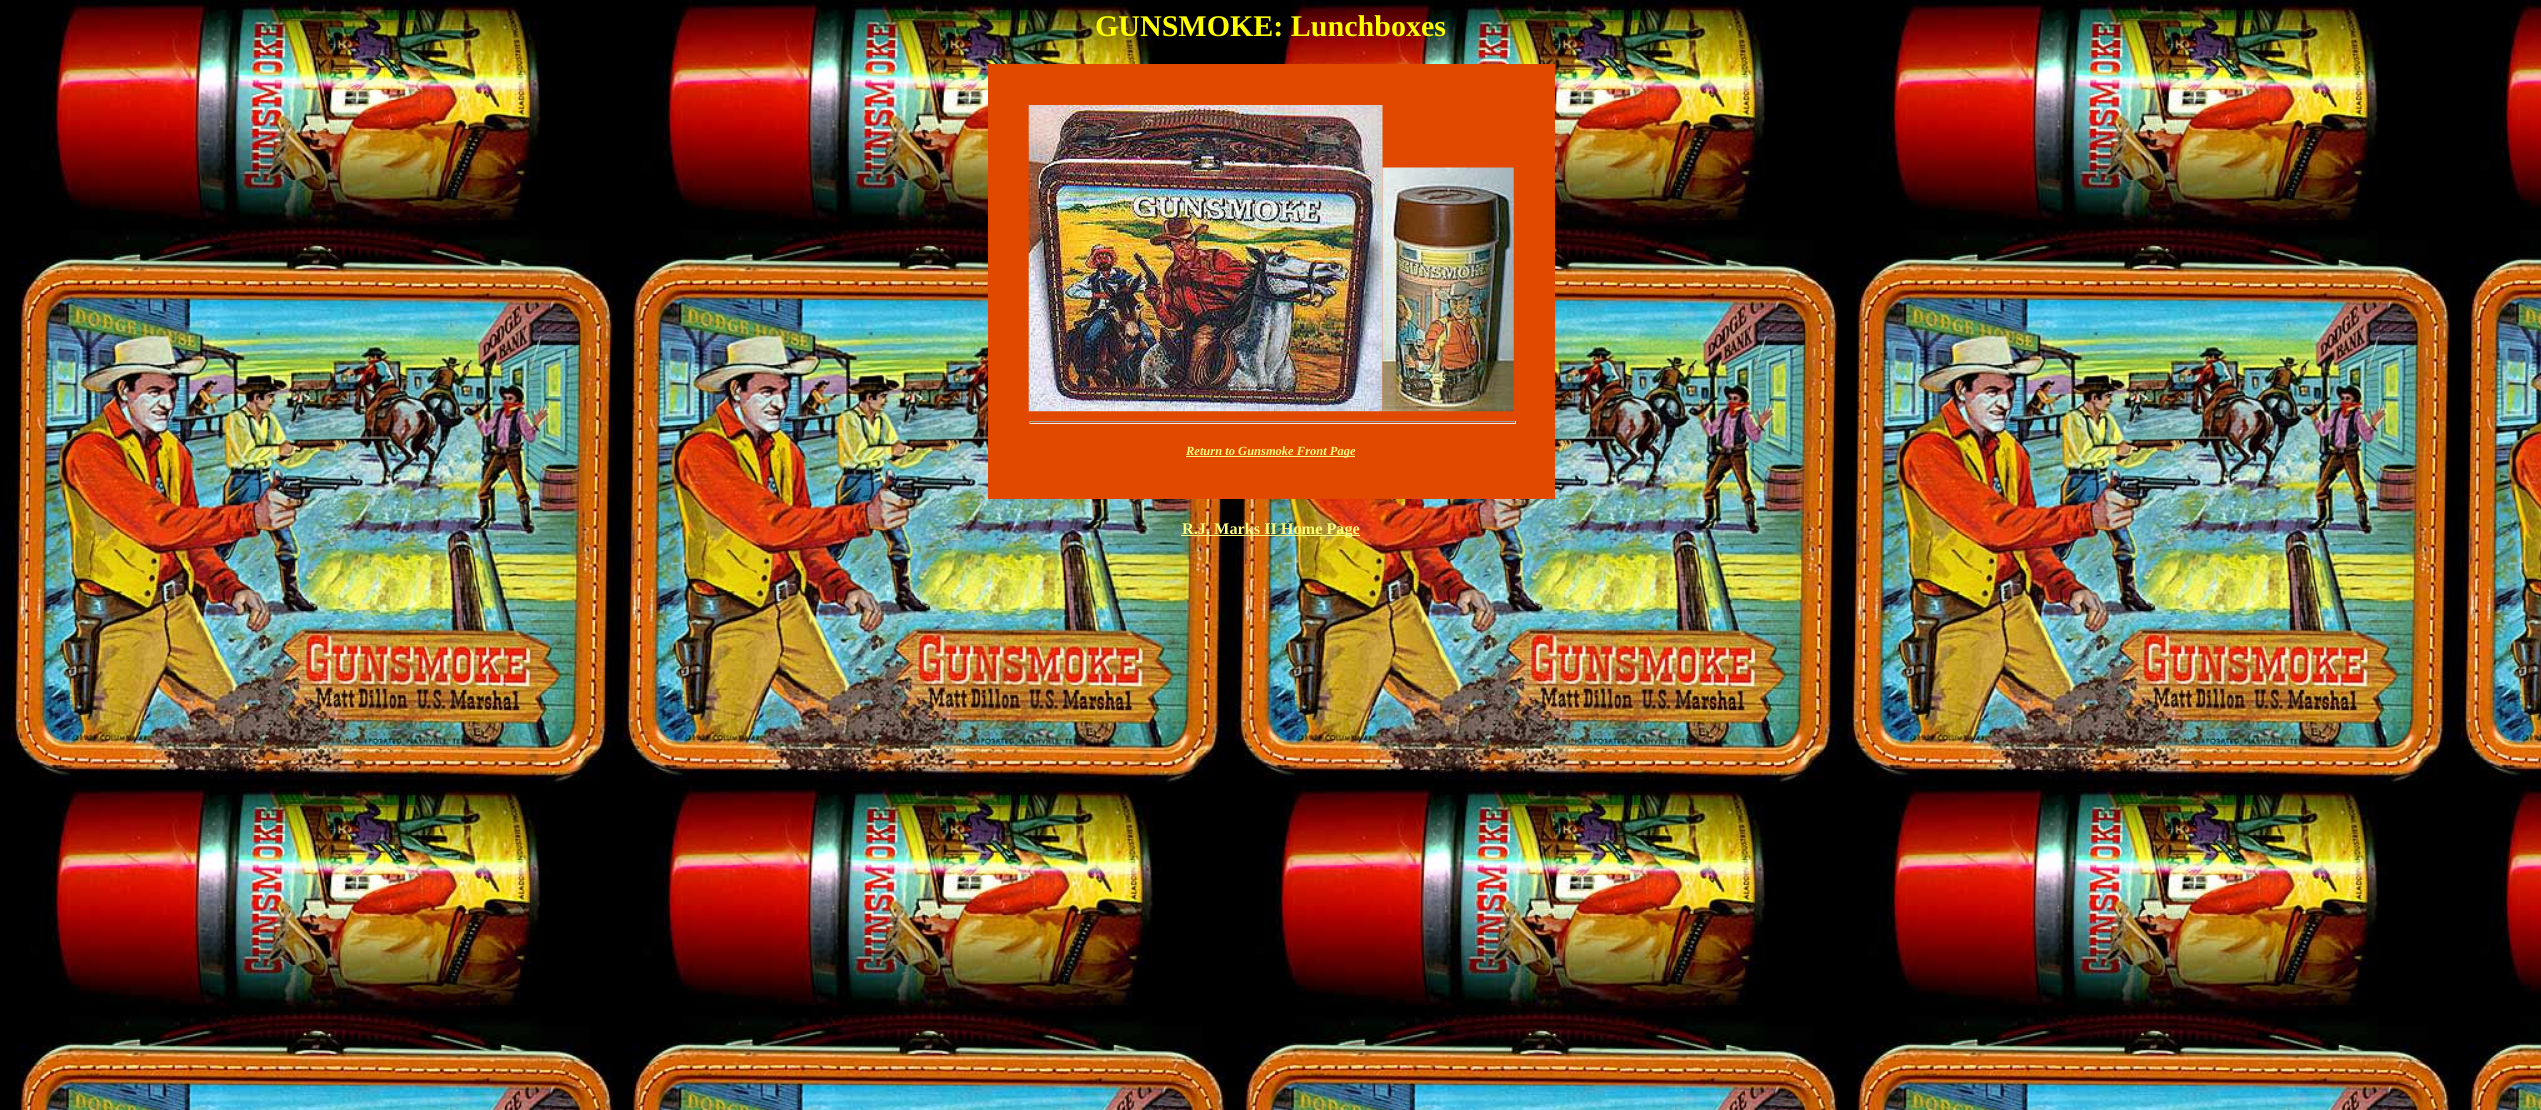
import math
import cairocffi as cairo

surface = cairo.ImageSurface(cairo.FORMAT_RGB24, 2541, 1110)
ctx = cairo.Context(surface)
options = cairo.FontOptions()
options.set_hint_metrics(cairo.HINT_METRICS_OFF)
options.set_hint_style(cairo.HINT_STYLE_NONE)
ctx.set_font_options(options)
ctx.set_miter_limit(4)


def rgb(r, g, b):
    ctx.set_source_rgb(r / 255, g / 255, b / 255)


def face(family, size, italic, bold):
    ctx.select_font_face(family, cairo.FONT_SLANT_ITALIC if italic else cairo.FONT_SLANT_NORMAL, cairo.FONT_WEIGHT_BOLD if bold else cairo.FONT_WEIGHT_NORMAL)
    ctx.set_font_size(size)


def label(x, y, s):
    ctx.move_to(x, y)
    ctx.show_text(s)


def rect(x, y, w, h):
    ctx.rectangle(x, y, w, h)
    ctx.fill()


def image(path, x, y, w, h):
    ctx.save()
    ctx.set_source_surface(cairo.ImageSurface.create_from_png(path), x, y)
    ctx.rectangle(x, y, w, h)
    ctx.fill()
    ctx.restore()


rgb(255, 255, 255)
ctx.paint()
image('image0.png', 0, 0, 2541, 1110)
face('Liberation Serif', 30, 0, 1)
rgb(255, 255, 0)
label(1095, 36, 'GUNSMOKE: Lunchboxes')
rgb(225, 73, 0)
rect(988, 64, 567, 435)
image('image1.png', 1028, 105, 355, 307)
image('image2.png', 1382, 167, 132, 245)
rgb(159, 159, 159)
rect(1029, 421, 487, 1)
rgb(238, 238, 238)
rect(1515, 421, 1, 3)
rect(1029, 423, 487, 1)
rgb(159, 159, 159)
rect(1029, 421, 1, 3)
rgb(255, 255, 128)
rect(1186, 456, 169, 1)
face('Liberation Serif', 12.5, 1, 1)
label(1186, 455, 'Return to Gunsmoke Front Page')
rect(1181, 535, 179, 1)
face('Liberation Serif', 16.25, 0, 1)
label(1182, 534, 'R.J. Marks II Home Page')
surface.write_to_png('render.png')
